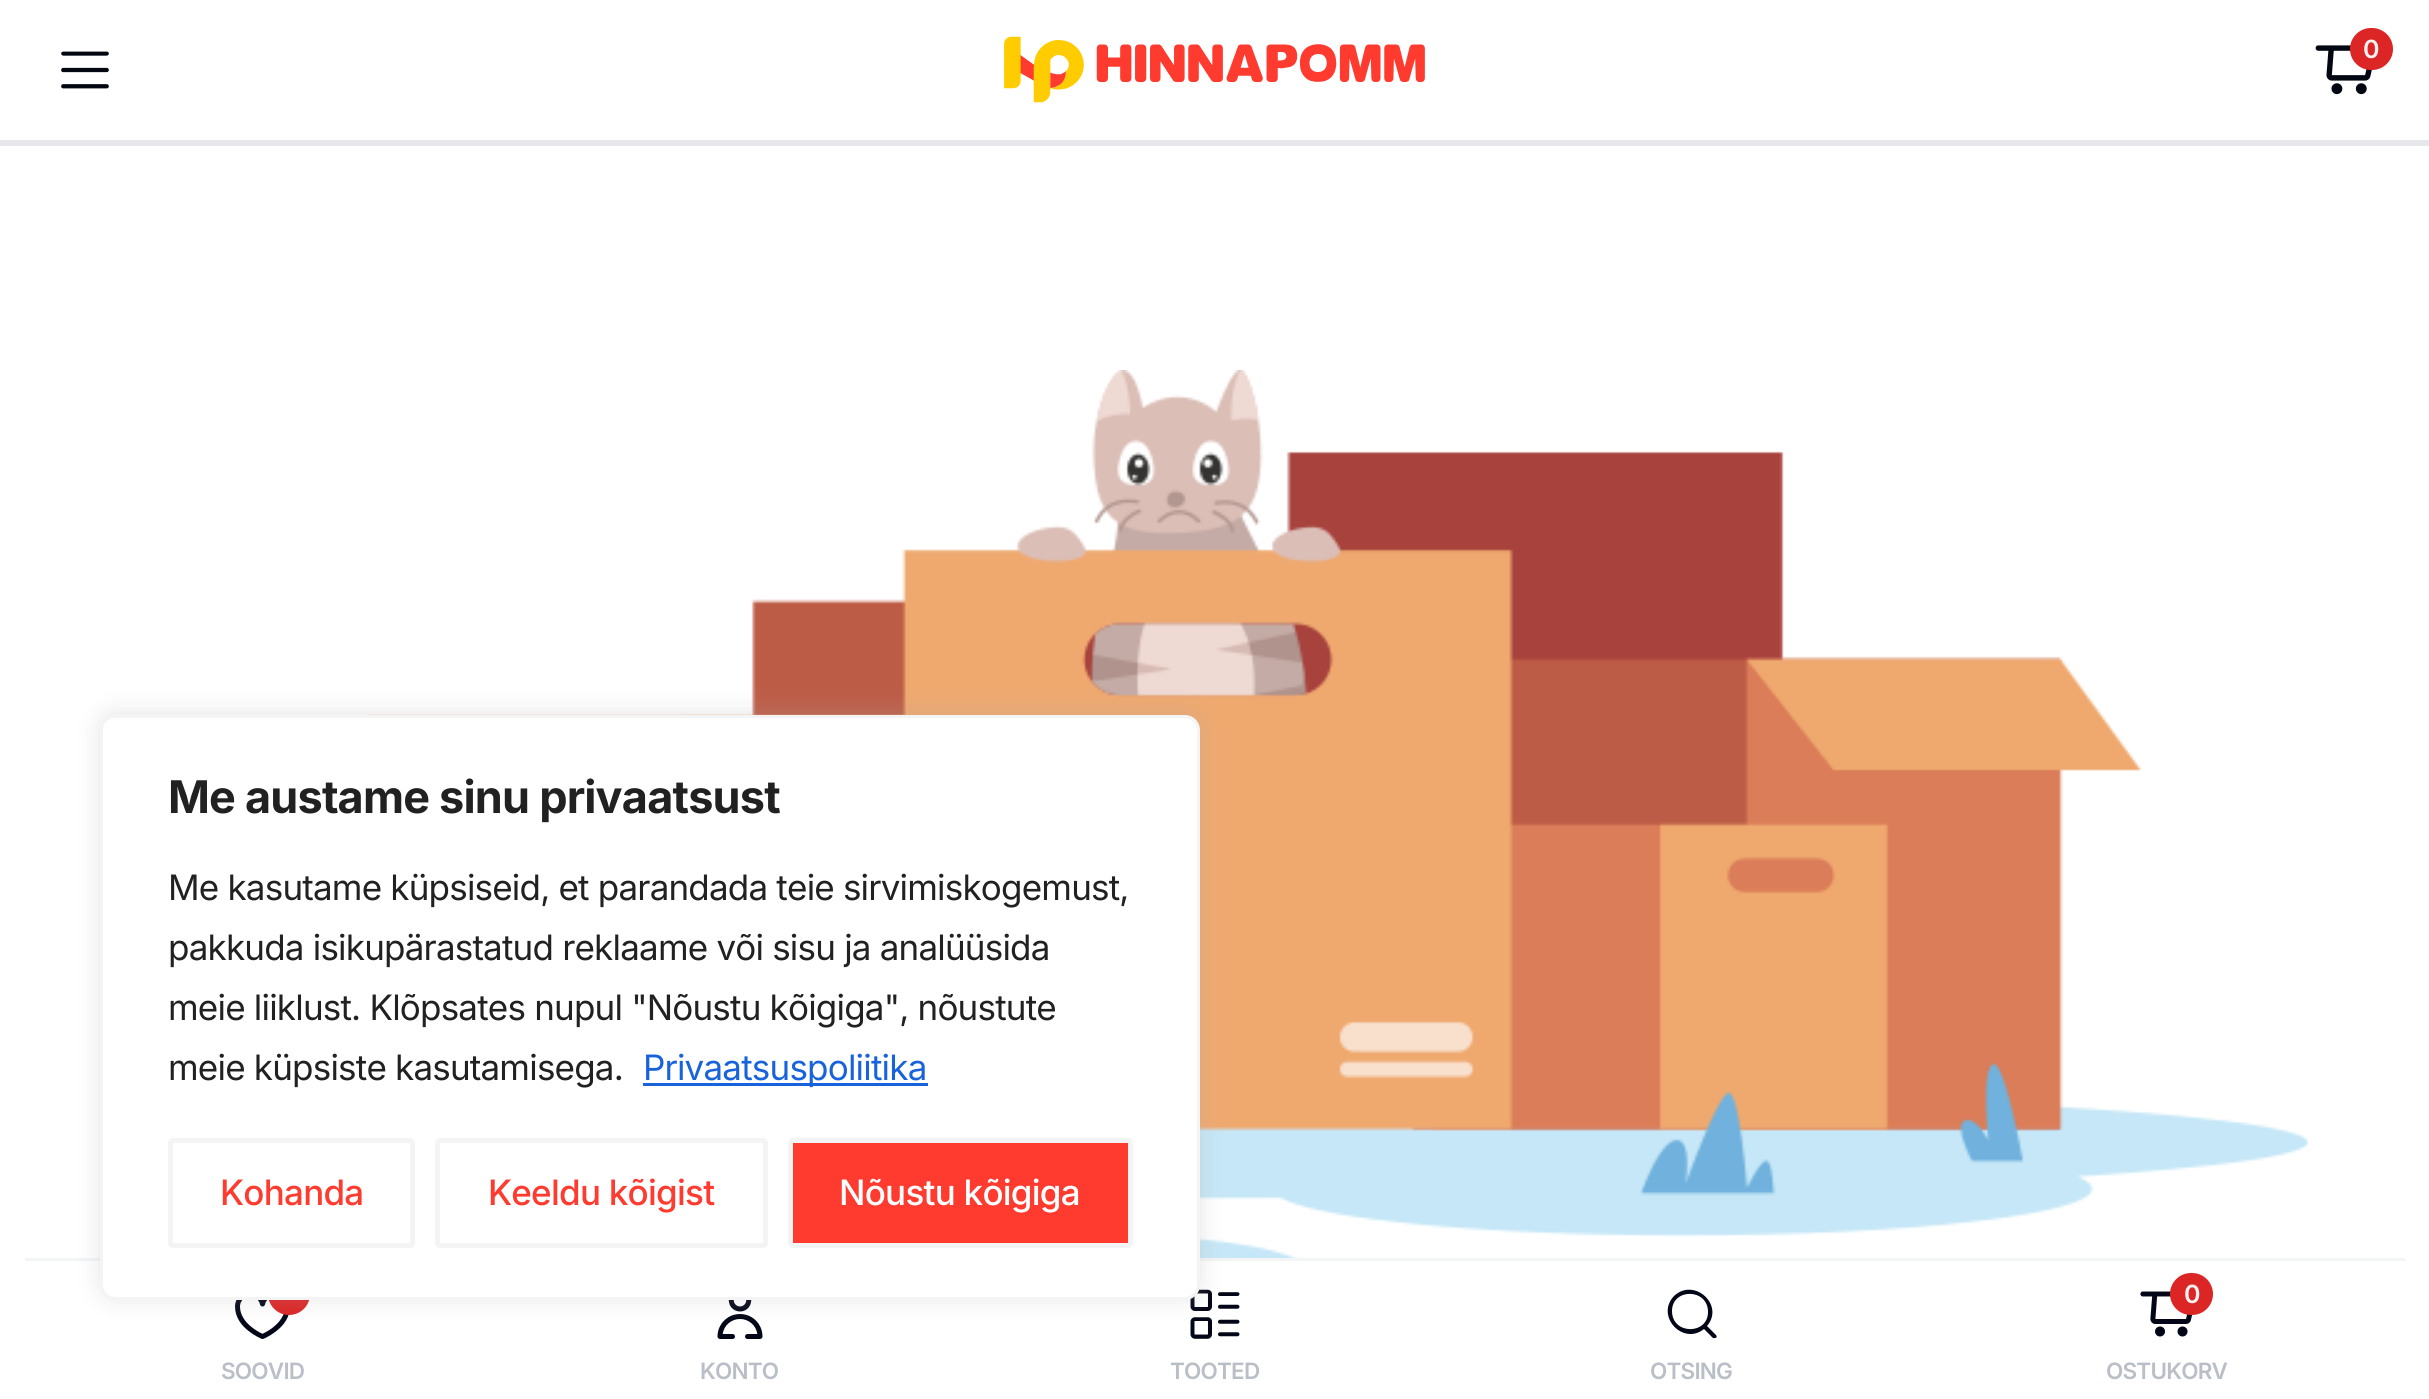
import math
import cairocffi as cairo

surface = cairo.ImageSurface(cairo.FORMAT_RGB24, 2429, 1399)
ctx = cairo.Context(surface)
options = cairo.FontOptions()
options.set_hint_metrics(cairo.HINT_METRICS_OFF)
options.set_hint_style(cairo.HINT_STYLE_NONE)
ctx.set_font_options(options)
ctx.set_miter_limit(4)


def rgb(r, g, b):
    ctx.set_source_rgb(r / 255, g / 255, b / 255)


def face(family, size, italic, bold):
    ctx.select_font_face(family, cairo.FONT_SLANT_ITALIC if italic else cairo.FONT_SLANT_NORMAL, cairo.FONT_WEIGHT_BOLD if bold else cairo.FONT_WEIGHT_NORMAL)
    ctx.set_font_size(size)


def tracked(x, y, s, letter, word):
    ctx.move_to(x, y)
    for ch in s:
        ctx.show_text(ch)
        ctx.rel_move_to(letter + word * (ch == ' '), 0)


def rect(x, y, w, h):
    ctx.rectangle(x, y, w, h)
    ctx.fill()


def rrect(x, y, w, h, r):
    ctx.new_sub_path()
    for i, (u, v) in enumerate([(x + w - r, y + h - r), (x + r, y + h - r), (x + r, y + r), (x + w - r, y + r)]):
        ctx.arc(u, v, r, i * math.pi / 2, (i + 1) * math.pi / 2)
    ctx.close_path()


def soft_shadow(x, y, w, h, r, blur, alpha):
    ctx.push_group_with_content(cairo.CONTENT_ALPHA)
    ctx.set_operator(cairo.OPERATOR_SOURCE)
    for i in range(15, -16, -2):
        e = blur * i / 6
        if min(w, h) + 2 * e > 0:
            ctx.set_source_rgba(0, 0, 0, alpha * math.erfc((i - 1) / 8.5) / 2)
            rrect(x - e, y - e, w + 2 * e, h + 2 * e, max(0, min(r + e + blur * .6, min(w, h) / 2 + e)))
            ctx.fill()
    ctx.mask(ctx.pop_group())


def image(path, x, y, w, h):
    ctx.save()
    ctx.set_source_surface(cairo.ImageSurface.create_from_png(path), x, y)
    ctx.rectangle(x, y, w, h)
    ctx.fill()
    ctx.restore()


rgb(255, 255, 255)
ctx.paint()
rgb(229, 231, 235)
rect(0, 140, 2429, 6)
image('image0.png', 1004, 36, 421, 67)
image('image1.png', 2315, 45, 57, 50)
rgb(220, 38, 38)
rrect(2350, 28, 43, 42, 21)
ctx.fill()
face('Inter SemiBold', 25, 0, 0)
rgb(254, 242, 242)
tracked(2363, 58, '0', -0.8, 0)
image('image2.png', 61, 51, 48, 38)
image('image3.png', 366, 370, 1942, 888)
rgb(243, 244, 246)
rect(25, 1258, 2380, 3)
image('image4.png', 235, 1300, 54, 39)
rgb(220, 38, 38)
ctx.arc(289, 1294, 21, 0, 2 * math.pi)
ctx.fill()
image('image5.png', 717, 1300, 46, 39)
image('image6.png', 1190, 1289, 50, 50)
rgb(172, 171, 171)
soft_shadow(100, 713, 1100, 585, 15, 12.5, 0.3)
rgb(255, 255, 255)
rrect(101.5, 716.5, 1097, 582, 13.5)
ctx.fill_preserve()
rgb(244, 244, 244)
ctx.set_line_width(3)
ctx.stroke()
face('Inter', 45, 0, 1)
rgb(33, 33, 33)
tracked(168, 813, 'Me austame sinu privaatsust', -0.8, 0)
face('Inter', 35, 0, 0)
tracked(168, 900, 'Me kasutame küpsiseid, et parandada teie sirvimiskogemust,', -0.8, 0)
tracked(168, 960, 'pakkuda isikupärastatud reklaame või sisu ja analüüsida', -0.8, 0)
tracked(168, 1020, 'meie liiklust. Klõpsates nupul "Nõustu kõigiga", nõustute', -0.8, 0)
tracked(168, 1080, 'meie küpsiste kasutamisega.', -0.8, 0)
rgb(24, 99, 220)
rect(643, 1083, 285, 3)
tracked(643, 1080, 'Privaatsuspoliitika', -0.8, 0)
rrect(170.5, 1140.5, 242, 105, 2.5)
rgb(244, 244, 244)
ctx.set_line_width(5)
ctx.stroke()
face('Inter Medium', 35, 0, 0)
rgb(255, 59, 48)
tracked(220, 1205, 'Kohanda', -0.75, 0)
rrect(437.5, 1140.5, 328, 105, 2.5)
rgb(244, 244, 244)
ctx.stroke()
rgb(255, 59, 48)
tracked(488, 1205, 'Keeldu kõigist', -0.75, 0)
rrect(790.5, 1140.5, 340, 105, 2.5)
ctx.fill_preserve()
rgb(244, 244, 244)
ctx.stroke()
rgb(255, 255, 255)
tracked(839, 1205, 'Nõustu kõigiga', -0.75, 0)
face('Inter SemiBold', 22.5, 0, 0)
rgb(186, 191, 199)
tracked(221, 1379, 'SOOVID', -0.8, 0)
tracked(700, 1379, 'KONTO', -0.8, 0)
tracked(1170, 1379, 'TOOTED', -0.8, 0)
rgb(2, 6, 23)
ctx.new_path()
ctx.move_to(1716, 1335)
ctx.line_to(1707, 1326)
ctx.curve_to(1725, 1305, 1694, 1277, 1674, 1296)
ctx.curve_to(1655, 1316, 1683, 1346, 1704, 1329)
ctx.line_to(1710, 1335)
ctx.curve_to(1711, 1336, 1713, 1339, 1715, 1338)
ctx.curve_to(1717, 1338, 1717, 1336, 1716, 1335)
ctx.close_path()
ctx.move_to(1672, 1311)
ctx.curve_to(1672, 1288, 1708, 1288, 1708, 1312)
ctx.curve_to(1708, 1335, 1672, 1335, 1672, 1311)
ctx.close_path()
ctx.fill()
rgb(186, 191, 199)
tracked(1650, 1379, 'OTSING', -0.8, 0)
image('image7.png', 2140, 1291, 53, 46)
rgb(220, 38, 38)
rrect(2170, 1273, 43, 42, 21)
ctx.fill()
face('Inter SemiBold', 25, 0, 0)
rgb(254, 242, 242)
tracked(2184, 1303, '0', -0.8, 0)
face('Inter SemiBold', 22.5, 0, 0)
rgb(186, 191, 199)
tracked(2106, 1379, 'OSTUKORV', -0.8, 0)
surface.write_to_png('render.png')
